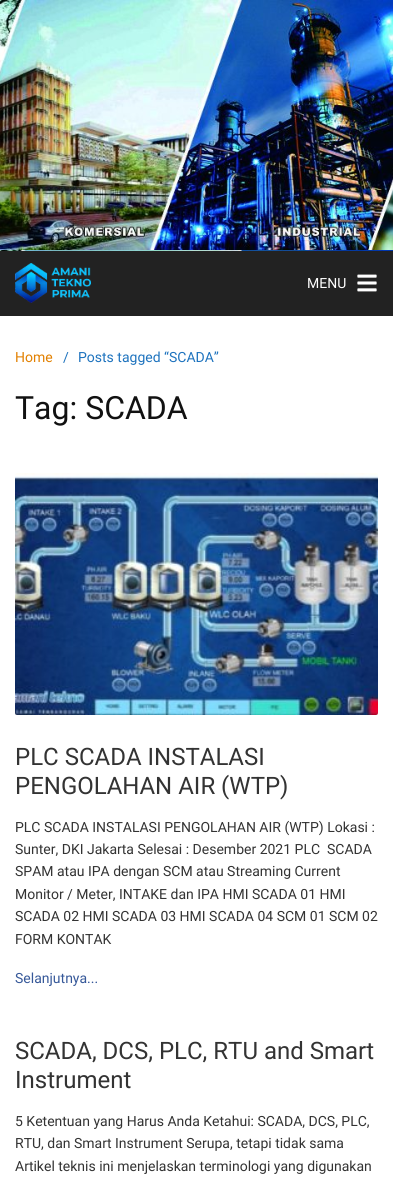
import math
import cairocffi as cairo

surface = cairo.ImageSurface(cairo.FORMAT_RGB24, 393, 1179)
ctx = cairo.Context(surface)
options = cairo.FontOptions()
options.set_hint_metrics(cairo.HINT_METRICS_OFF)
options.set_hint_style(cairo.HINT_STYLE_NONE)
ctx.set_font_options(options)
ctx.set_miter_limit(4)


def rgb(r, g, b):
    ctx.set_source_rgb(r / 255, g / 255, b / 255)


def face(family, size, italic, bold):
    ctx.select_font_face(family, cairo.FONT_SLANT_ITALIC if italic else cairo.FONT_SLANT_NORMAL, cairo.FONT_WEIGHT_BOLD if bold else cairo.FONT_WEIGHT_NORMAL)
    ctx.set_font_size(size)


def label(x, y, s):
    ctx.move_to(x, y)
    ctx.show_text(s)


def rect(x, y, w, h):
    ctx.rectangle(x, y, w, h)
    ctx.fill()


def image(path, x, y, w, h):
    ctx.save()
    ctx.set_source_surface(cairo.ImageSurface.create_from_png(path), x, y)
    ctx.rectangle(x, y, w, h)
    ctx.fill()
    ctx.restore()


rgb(255, 255, 255)
ctx.paint()
image('image0.png', 0, 0, 393, 251)
ctx.set_source_rgba(0, 0, 0, 0.12)
rect(0, 250, 393, 1)
rgb(34, 34, 34)
rect(0, 251, 393, 65)
image('image1.png', 15, 263, 76, 40)
face('Roboto', 14, 0, 0)
rgb(255, 255, 255)
label(307, 288, 'MENU')
image('image2.png', 357, 274, 20, 18)
rgb(226, 128, 0)
label(15, 362, 'Home')
rgb(30, 115, 190)
label(63, 362, '/')
label(78, 362, 'Posts tagged “SCADA”')
face('Roboto', 32, 0, 0)
rgb(17, 17, 17)
label(15, 419, 'Tag: SCADA')
image('image3.png', 15, 473, 363, 242)
face('Roboto', 24, 0, 0)
rgb(51, 51, 51)
label(15, 765, 'PLC SCADA INSTALASI')
label(15, 794, 'PENGOLAHAN AIR (WTP)')
face('Roboto', 14, 0, 0)
label(15, 832, 'PLC SCADA INSTALASI PENGOLAHAN AIR (WTP) Lokasi :')
label(15, 854, 'Sunter, DKI Jakarta Selesai : Desember 2021 PLC  SCADA')
label(15, 876, 'SPAM atau IPA dengan SCM atau Streaming Current')
label(15, 899, 'Monitor / Meter, INTAKE dan IPA HMI SCADA 01 HMI')
label(15, 921, 'SCADA 02 HMI SCADA 03 HMI SCADA 04 SCM 01 SCM 02')
label(15, 944, 'FORM KONTAK')
rgb(54, 88, 153)
label(15, 983, 'Selanjutnya...')
face('Roboto', 24, 0, 0)
rgb(51, 51, 51)
label(15, 1059, 'SCADA, DCS, PLC, RTU and Smart')
label(15, 1088, 'Instrument')
face('Roboto', 14, 0, 0)
label(15, 1126, '5 Ketentuan yang Harus Anda Ketahui: SCADA, DCS, PLC,')
label(15, 1148, 'RTU, dan Smart Instrument Serupa, tetapi tidak sama')
label(15, 1171, 'Artikel teknis ini menjelaskan terminologi yang digunakan')
surface.write_to_png('render.png')
